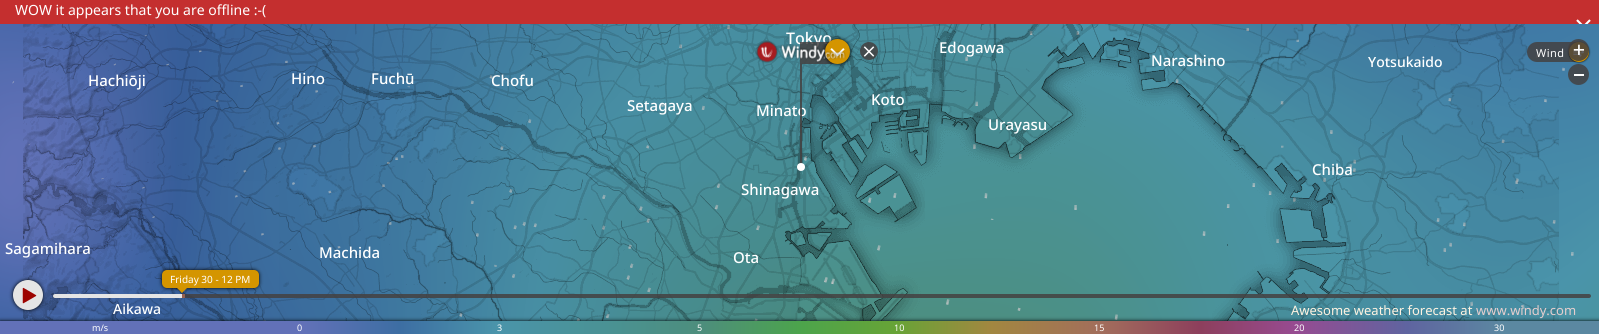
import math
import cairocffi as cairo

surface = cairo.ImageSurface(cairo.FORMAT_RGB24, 1599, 334)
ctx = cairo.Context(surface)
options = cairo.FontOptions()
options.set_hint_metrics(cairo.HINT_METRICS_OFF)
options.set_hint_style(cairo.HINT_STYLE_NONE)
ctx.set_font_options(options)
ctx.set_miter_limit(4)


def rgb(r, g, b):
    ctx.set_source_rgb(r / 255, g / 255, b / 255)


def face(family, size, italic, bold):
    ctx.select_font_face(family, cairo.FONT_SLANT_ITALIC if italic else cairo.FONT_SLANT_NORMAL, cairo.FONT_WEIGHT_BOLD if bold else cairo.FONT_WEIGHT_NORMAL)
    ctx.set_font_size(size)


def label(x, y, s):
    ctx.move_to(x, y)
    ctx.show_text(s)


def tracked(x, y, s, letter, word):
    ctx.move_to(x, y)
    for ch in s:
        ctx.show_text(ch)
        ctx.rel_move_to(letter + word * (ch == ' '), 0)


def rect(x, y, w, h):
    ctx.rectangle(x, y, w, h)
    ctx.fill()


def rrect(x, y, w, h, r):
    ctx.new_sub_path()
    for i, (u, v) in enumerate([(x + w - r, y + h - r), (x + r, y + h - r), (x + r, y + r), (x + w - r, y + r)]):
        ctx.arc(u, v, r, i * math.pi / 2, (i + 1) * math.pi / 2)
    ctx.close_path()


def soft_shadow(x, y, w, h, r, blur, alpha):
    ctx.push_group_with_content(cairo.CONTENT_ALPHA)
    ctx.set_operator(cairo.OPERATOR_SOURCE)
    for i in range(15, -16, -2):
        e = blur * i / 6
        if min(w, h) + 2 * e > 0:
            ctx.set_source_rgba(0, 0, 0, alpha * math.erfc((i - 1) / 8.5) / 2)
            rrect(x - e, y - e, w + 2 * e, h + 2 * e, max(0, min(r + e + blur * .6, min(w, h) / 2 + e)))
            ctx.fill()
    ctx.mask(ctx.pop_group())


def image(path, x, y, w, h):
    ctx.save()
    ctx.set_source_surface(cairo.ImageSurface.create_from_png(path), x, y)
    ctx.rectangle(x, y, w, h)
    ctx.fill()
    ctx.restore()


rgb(255, 255, 255)
ctx.paint()
rgb(196, 47, 47)
rect(0, 0, 1599, 24)
face('Noto Sans', 14, 0, 0)
rgb(255, 255, 255)
label(15, 15, 'WOW it appears that you are offline :-(')
image('image0.png', 1576, 19, 15, 5)
image('image1.png', 0, 24, 23, 157)
image('image2.png', 23, 24, 256, 157)
image('image3.png', 279, 24, 256, 157)
image('image4.png', 535, 24, 256, 157)
image('image5.png', 791, 24, 256, 157)
image('image6.png', 1047, 24, 256, 157)
image('image7.png', 1303, 24, 256, 157)
image('image8.png', 1559, 24, 40, 157)
image('image9.png', 0, 181, 23, 140)
image('image10.png', 23, 181, 256, 140)
image('image11.png', 279, 181, 256, 140)
image('image12.png', 535, 181, 256, 140)
image('image13.png', 791, 181, 256, 140)
image('image14.png', 1047, 181, 256, 140)
image('image15.png', 1303, 181, 256, 140)
image('image16.png', 1559, 181, 40, 140)
image('image29.png', 12, 25, 1562, 296)
image('image17.png', 23, 24, 256, 157)
image('image18.png', 279, 24, 256, 157)
image('image19.png', 535, 24, 256, 157)
image('image20.png', 791, 24, 256, 157)
image('image21.png', 1047, 24, 256, 157)
image('image22.png', 1303, 24, 256, 157)
image('image23.png', 23, 181, 256, 140)
image('image24.png', 279, 181, 256, 140)
image('image25.png', 535, 181, 256, 140)
image('image26.png', 791, 181, 134, 140)
image('image27.png', 1212, 181, 91, 140)
image('image28.png', 1303, 181, 256, 140)
face('Noto Sans Medium', 15, 0, 0)
label(88, 86, 'Hachiōji')
label(291, 84, 'Hino')
label(371, 84, 'Fuchū')
label(491, 86, 'Chofu')
face('Noto Sans Medium', 16, 0, 0)
label(786, 44, 'Tokyo')
face('Noto Sans Medium', 15, 0, 0)
label(939, 53, 'Edogawa')
label(871, 105, 'Koto')
label(988, 130, 'Urayasu')
label(1151, 66, 'Narashino')
face('Noto Sans Medium', 14, 0, 0)
label(1368, 67, 'Yotsukaido')
face('Noto Sans Medium', 15, 0, 0)
label(1312, 175, 'Chiba')
label(627, 111, 'Setagaya')
label(756, 116, 'Minato')
label(741, 195, 'Shinagawa')
label(733, 263, 'Ota')
label(5, 254, 'Sagamihara')
face('Noto Sans Medium', 14, 0, 0)
label(113, 314, 'Aikawa')
face('Noto Sans Medium', 15, 0, 0)
label(319, 258, 'Machida')
ctx.set_source_rgba(0.267, 0.255, 0.255, 0.84)
rect(800, 42, 2, 125)
rgb(255, 255, 255)
ctx.new_path()
ctx.arc(801, 167, 4, 0, 2 * math.pi)
ctx.fill()
ctx.set_source_rgba(0.267, 0.255, 0.255, 0.84)
ctx.new_path()
ctx.move_to(802, 42)
ctx.line_to(831, 42)
ctx.curve_to(837, 42, 842, 47, 842, 53)
ctx.curve_to(842, 59, 837, 64, 831, 64)
ctx.line_to(802, 64)
ctx.close_path()
ctx.fill()
rgb(0, 0, 0)
soft_shadow(825, 39, 25, 25, 12.5, 2, 1)
rgb(212, 149, 0)
ctx.arc(837.5, 51.5, 12.5, 0, 2 * math.pi)
ctx.fill()
image('image30.png', 830, 48, 15, 9)
ctx.set_source_rgba(0.267, 0.255, 0.255, 0.84)
ctx.arc(869, 51, 9, 0, 2 * math.pi)
ctx.fill()
image('image31.png', 863, 46, 12, 11)
rrect(1527, 42, 62, 20, 10)
ctx.fill()
rgb(0, 0, 0)
soft_shadow(1569, 42, 20, 20, 10, 1, 1)
rgb(212, 149, 0)
ctx.arc(1579, 52, 10, 0, 2 * math.pi)
ctx.fill()
image('image35.png', 1573, 50, 11, 7)
ctx.set_source_rgba(0.267, 0.255, 0.255, 0.84)
rrect(1568, 39, 21, 22, 10.5)
ctx.fill()
image('image32.png', 1573, 44, 12, 11)
ctx.arc(1578.5, 74.5, 10.5, 0, 2 * math.pi)
ctx.fill()
rgb(255, 255, 255)
rect(1574, 74, 10, 2)
image('image33.png', 755, 40, 24, 24)
image('image34.png', 780, 44, 66, 19)
face('Noto Sans', 11, 0, 0)
tracked(1536, 57, 'Wind', 0.5, 0)
rgb(0, 0, 0)
soft_shadow(13, 280, 30, 30, 15, 2, 1)
rgb(229, 229, 229)
ctx.arc(28, 295, 15, 0, 2 * math.pi)
ctx.fill()
image('image36.png', 22, 287, 15, 17)
rgb(0, 0, 0)
soft_shadow(162, 270, 97, 18, 5, 2, 1)
rgb(212, 149, 0)
rrect(162, 270, 97, 18, 5)
ctx.fill()
face('Noto Sans', 10, 0, 0)
rgb(255, 255, 255)
label(170, 283, 'Friday 30 - 12 PM')
rgb(212, 149, 0)
ctx.new_path()
ctx.move_to(177, 288)
ctx.line_to(187, 288)
ctx.line_to(182, 293)
ctx.close_path()
ctx.fill()
ctx.set_source_rgba(0.267, 0.255, 0.255, 0.84)
rrect(53, 294, 1538, 4, 2)
ctx.fill()
rgb(229, 229, 229)
ctx.new_path()
ctx.move_to(55, 294)
ctx.line_to(182, 294)
ctx.line_to(182, 298)
ctx.line_to(55, 298)
ctx.curve_to(54, 298, 53, 297, 53, 296)
ctx.curve_to(53, 295, 54, 294, 55, 294)
ctx.close_path()
ctx.fill()
rgb(148, 96, 81)
rect(182, 294, 3, 4)
rgb(0, 0, 0)
soft_shadow(0, 321, 1599, 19, 0, 2, 1)
face('Noto Sans', 13, 0, 0)
rgb(255, 243, 225)
label(1291, 315, 'Awesome weather forecast at')
rgb(230, 206, 206)
label(1476, 315, 'www.windy.com')
gradient = cairo.LinearGradient(0, 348, 1599, 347)
gradient.add_color_stop_rgba(0, 0.384, 0.443, 0.722, 1)
gradient.add_color_stop_rgba(0.19, 0.384, 0.443, 0.722, 1)
gradient.add_color_stop_rgba(0.25, 0.239, 0.431, 0.639, 1)
gradient.add_color_stop_rgba(0.31, 0.29, 0.58, 0.667, 1)
gradient.add_color_stop_rgba(0.38, 0.29, 0.573, 0.58, 1)
gradient.add_color_stop_rgba(0.44, 0.302, 0.557, 0.486, 1)
gradient.add_color_stop_rgba(0.5, 0.298, 0.643, 0.298, 1)
gradient.add_color_stop_rgba(0.56, 0.404, 0.643, 0.212, 1)
gradient.add_color_stop_rgba(0.62, 0.635, 0.529, 0.251, 1)
gradient.add_color_stop_rgba(0.69, 0.635, 0.427, 0.361, 1)
gradient.add_color_stop_rgba(0.75, 0.553, 0.247, 0.361, 1)
gradient.add_color_stop_rgba(0.81, 0.592, 0.294, 0.569, 1)
gradient.add_color_stop_rgba(0.88, 0.373, 0.392, 0.627, 1)
gradient.add_color_stop_rgba(0.94, 0.357, 0.533, 0.631, 1)
gradient.add_color_stop_rgba(1, 0.357, 0.533, 0.631, 1)
ctx.set_source(gradient)
rect(0, 321, 1599, 13)
face('Noto Sans', 9, 0, 0)
rgb(255, 255, 255)
label(92, 331, 'm/s')
label(297, 331, '0')
label(497, 331, '3')
label(697, 331, '5')
label(894, 331, '10')
label(1094, 331, '15')
label(1294, 331, '20')
label(1494, 331, '30')
surface.write_to_png('render.png')
